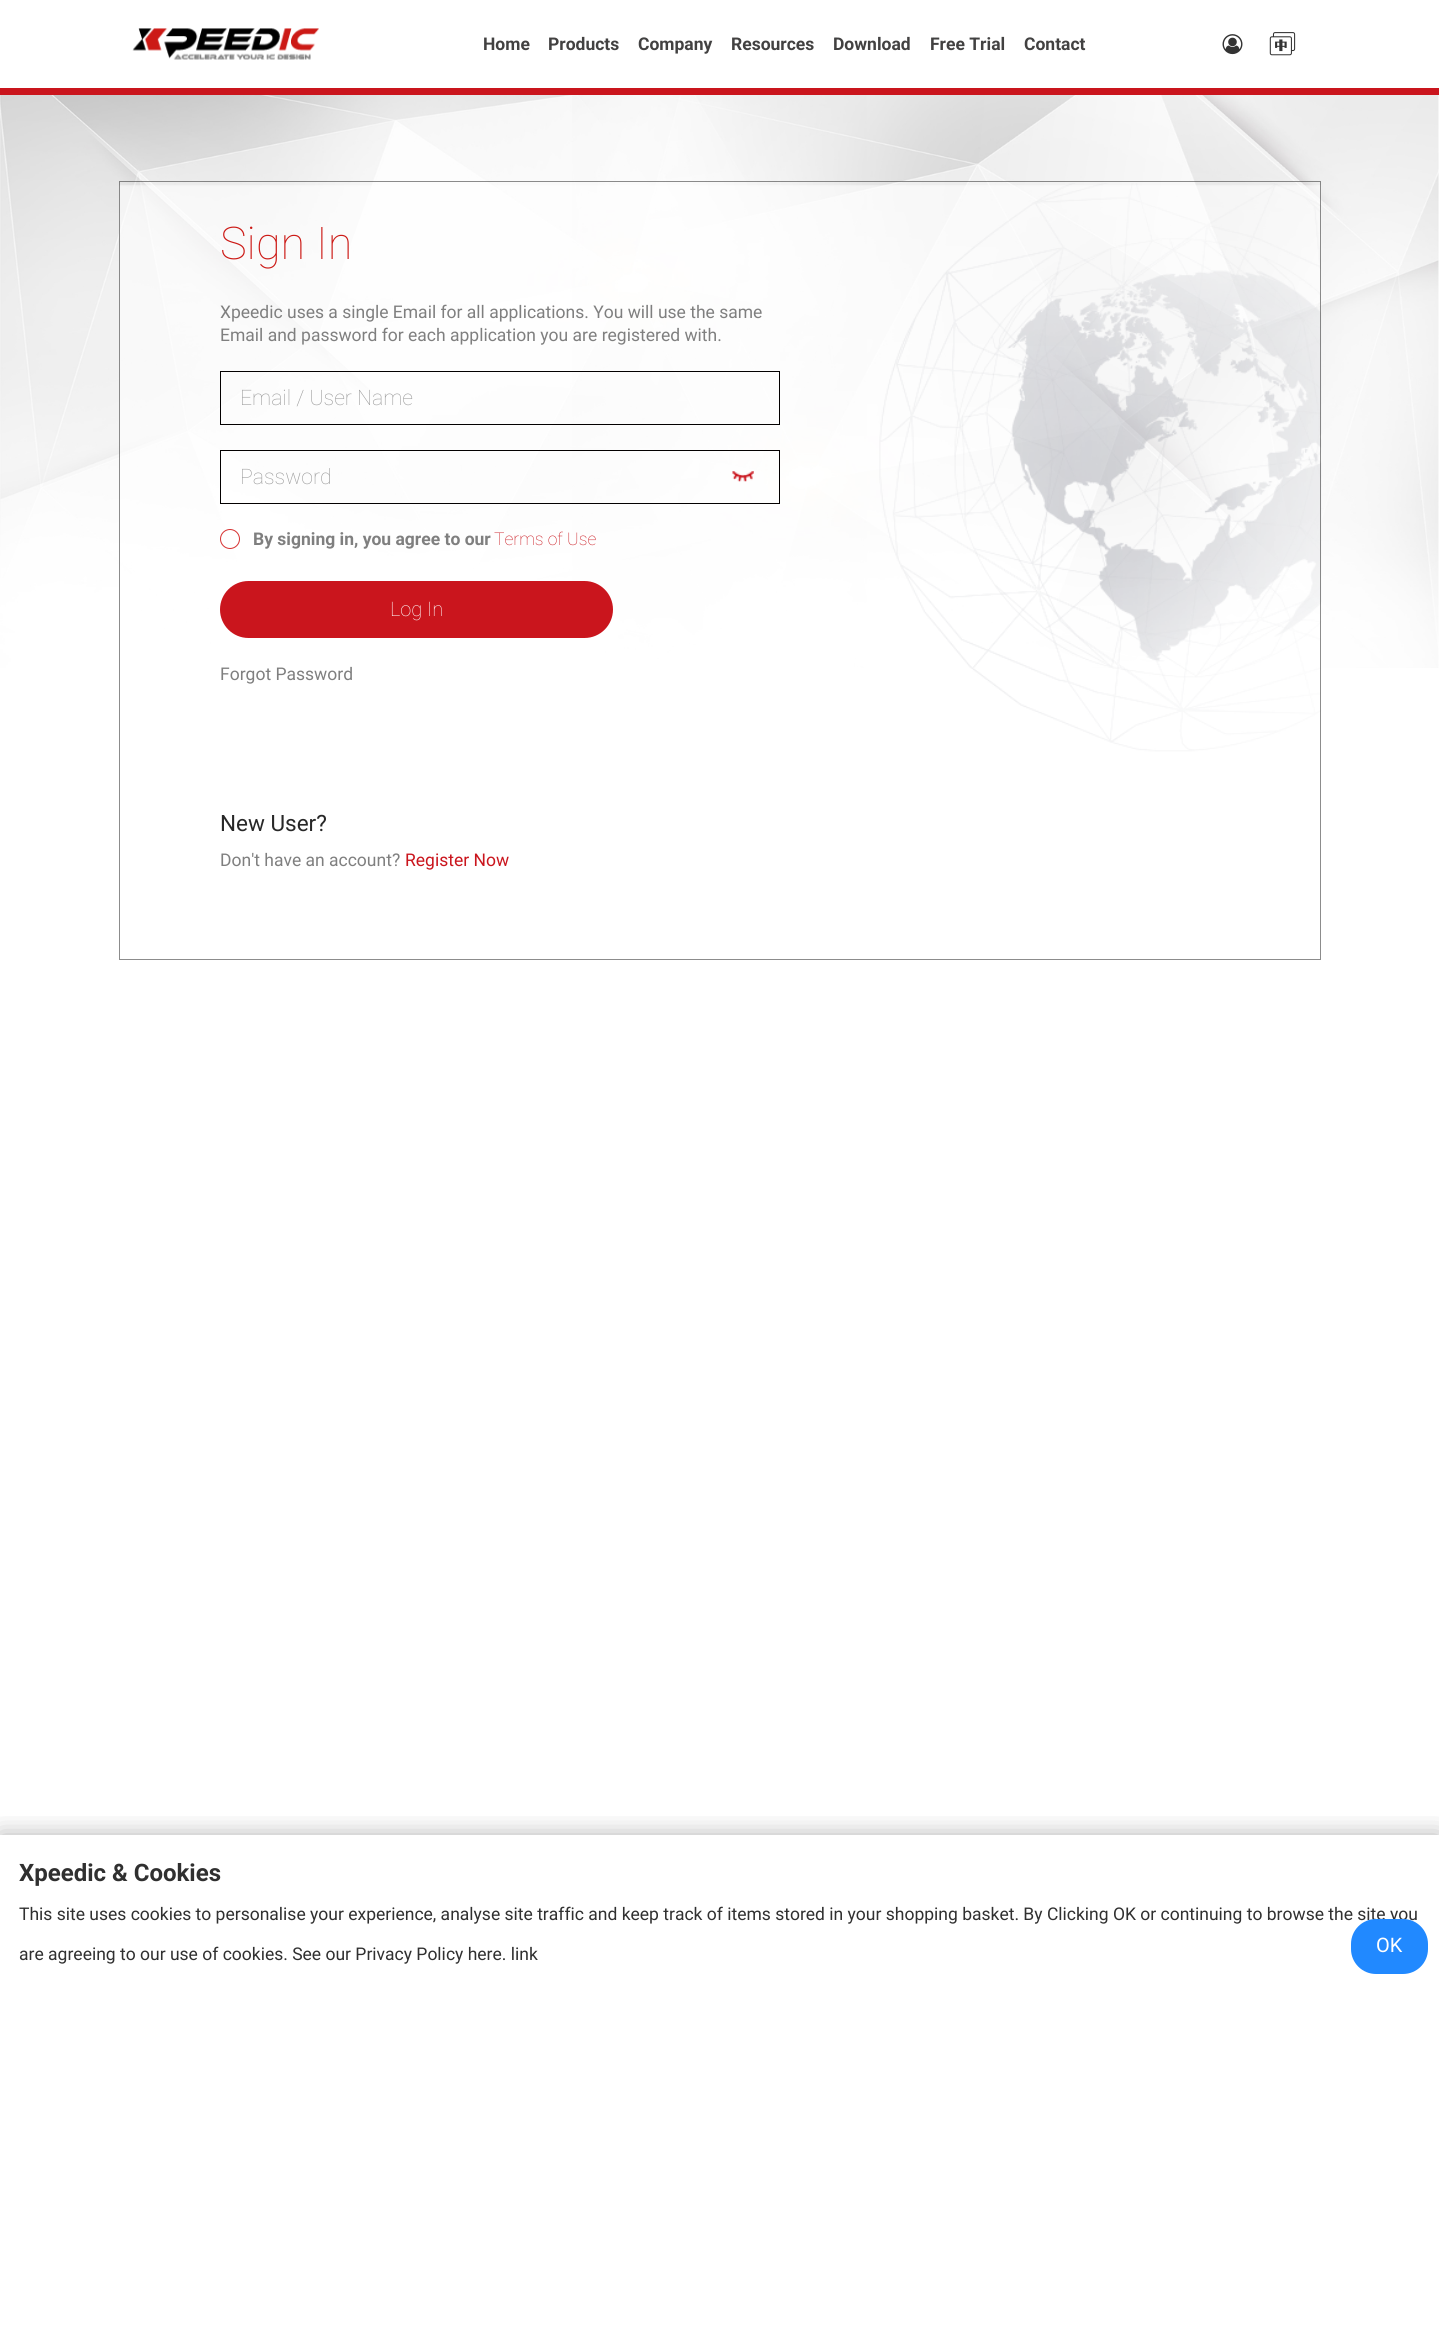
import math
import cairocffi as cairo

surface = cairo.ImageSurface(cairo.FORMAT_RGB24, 1439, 2352)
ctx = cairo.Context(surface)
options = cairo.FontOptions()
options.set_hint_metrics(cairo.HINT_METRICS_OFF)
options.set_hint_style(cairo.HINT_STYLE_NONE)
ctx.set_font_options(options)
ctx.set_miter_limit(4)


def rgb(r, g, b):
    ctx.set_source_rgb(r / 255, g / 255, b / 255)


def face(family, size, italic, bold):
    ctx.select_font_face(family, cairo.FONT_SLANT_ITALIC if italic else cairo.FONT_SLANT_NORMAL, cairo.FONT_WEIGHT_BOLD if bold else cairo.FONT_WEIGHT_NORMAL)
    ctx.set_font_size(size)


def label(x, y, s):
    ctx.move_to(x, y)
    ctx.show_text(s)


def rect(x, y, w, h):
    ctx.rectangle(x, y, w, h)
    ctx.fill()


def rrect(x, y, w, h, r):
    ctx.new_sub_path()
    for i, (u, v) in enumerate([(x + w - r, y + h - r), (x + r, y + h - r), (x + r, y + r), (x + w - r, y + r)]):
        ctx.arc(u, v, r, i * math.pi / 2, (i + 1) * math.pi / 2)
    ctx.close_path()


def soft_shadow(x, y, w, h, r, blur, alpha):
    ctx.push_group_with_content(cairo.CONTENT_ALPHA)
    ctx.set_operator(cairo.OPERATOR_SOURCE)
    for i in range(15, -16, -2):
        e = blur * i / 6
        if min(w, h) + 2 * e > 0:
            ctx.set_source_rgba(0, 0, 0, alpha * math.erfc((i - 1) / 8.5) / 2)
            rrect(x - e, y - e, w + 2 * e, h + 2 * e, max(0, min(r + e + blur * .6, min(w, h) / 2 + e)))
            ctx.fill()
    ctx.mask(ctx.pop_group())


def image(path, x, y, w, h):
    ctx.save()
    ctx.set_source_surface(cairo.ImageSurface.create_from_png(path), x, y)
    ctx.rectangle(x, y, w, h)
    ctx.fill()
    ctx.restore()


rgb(255, 255, 255)
ctx.paint()
rgb(202, 21, 29)
rect(0, 88, 1439, 7)
image('image0.png', 132, 28, 187, 32)
face('Roboto', 17.5, 0, 1)
rgb(66, 65, 65)
label(483, 50, 'Home')
label(548, 50, 'Products')
label(638, 50, 'Company')
label(731, 50, 'Resources')
label(833, 50, 'Download')
label(930, 50, 'Free Trial')
label(1024, 50, 'Contact')
image('image1.png', 1222, 34, 21, 21)
image('image2.png', 1269, 32, 27, 24)
image('image3.png', 0, 95, 1439, 573)
image('image4.png', 119, 183, 1203, 569)
ctx.rectangle(119.5, 181.5, 1201, 778)
ctx.set_source_rgba(0.196, 0.196, 0.196, 0.56)
ctx.set_line_width(1)
ctx.stroke()
face('Roboto Thin', 45, 0, 0)
rgb(204, 26, 22)
label(220, 259, 'Sign In')
face('Roboto', 17.5, 0, 0)
rgb(127, 127, 127)
label(220, 318, 'Xpeedic uses a single Email for all applications. You will use the same')
label(220, 341, 'Email and password for each application you are registered with.')
ctx.rectangle(220.5, 371.5, 559, 53)
rgb(3, 0, 0)
ctx.stroke()
face('Roboto Thin', 21.25, 0, 0)
rgb(153, 153, 153)
label(240, 405, 'Email / User Name')
ctx.rectangle(220.5, 450.5, 559, 53)
rgb(3, 0, 0)
ctx.stroke()
rgb(153, 153, 153)
label(240, 484, 'Password')
image('image5.png', 732, 471, 22, 11)
ctx.arc(230, 539, 9.5, 0, 2 * math.pi)
rgb(214, 48, 48)
ctx.stroke()
face('Roboto', 17.5, 0, 1)
rgb(127, 127, 127)
label(253, 545, 'By signing in, you agree to our')
face('Roboto Thin', 17.5, 0, 0)
rgb(202, 21, 29)
label(494, 545, 'Terms of Use')
rrect(220, 581, 393, 57, 28.5)
ctx.fill()
face('Roboto Thin', 20, 0, 0)
rgb(255, 255, 255)
label(390, 616, 'Log In')
face('Roboto', 17.5, 0, 0)
rgb(127, 127, 127)
label(220, 680, 'Forgot Password')
face('Roboto', 22.5, 0, 0)
rgb(40, 40, 40)
label(220, 831, 'New User?')
face('Roboto', 17.5, 0, 0)
rgb(127, 127, 127)
label(220, 866, 'Don\'t have an account?')
rgb(202, 21, 29)
label(405, 866, 'Register Now')
ctx.save()
ctx.rectangle(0, 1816, 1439, 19)
ctx.clip()
rgb(0, 0, 0)
soft_shadow(0, 1835, 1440, 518, 0, 12.5, 0.3)
ctx.restore()
face('Roboto', 24, 0, 1)
rgb(48, 48, 48)
label(19, 1881, 'Xpeedic & Cookies')
face('Roboto', 17.5, 0, 0)
label(19, 1920, 'This site uses cookies to personalise your experience, analyse site traffic and keep track of items stored in your shopping basket. By Clicking OK or continuing to browse the site you')
label(19, 1960, 'are agreeing to our use of cookies. See our Privacy Policy here. link')
rgb(33, 137, 255)
rrect(1351, 1919, 77, 55, 25)
ctx.fill()
face('Roboto', 20, 0, 0)
rgb(255, 255, 255)
label(1376, 1952, 'OK')
surface.write_to_png('render.png')
